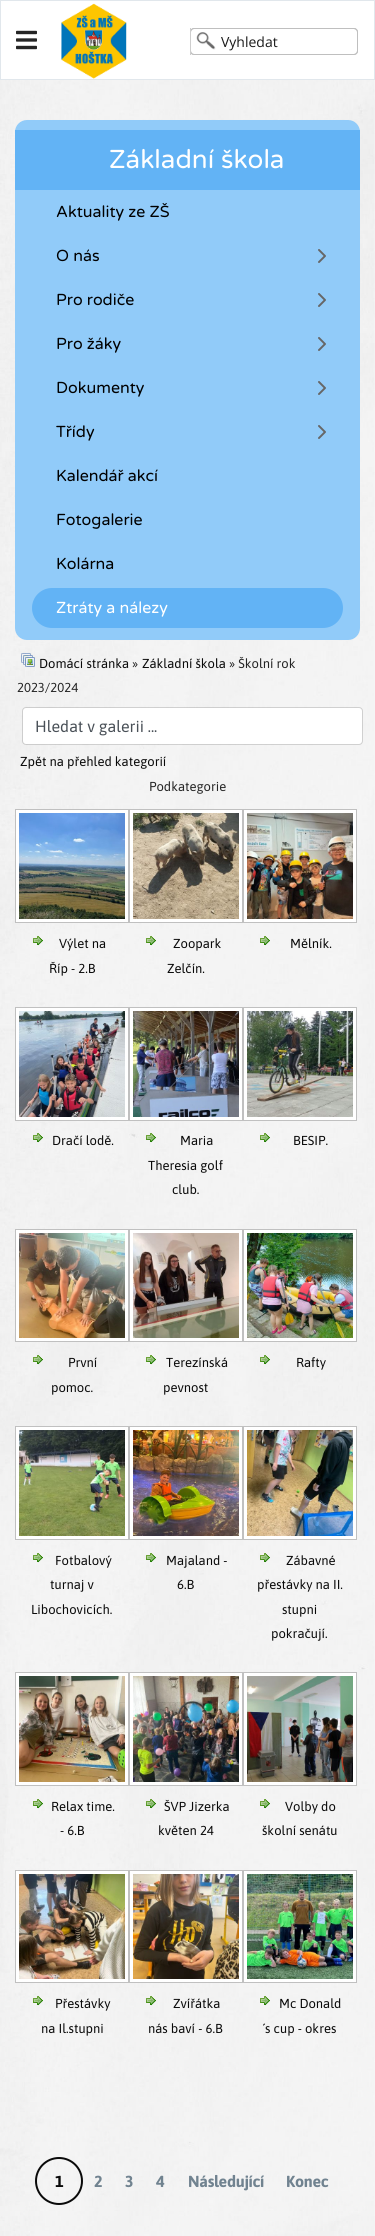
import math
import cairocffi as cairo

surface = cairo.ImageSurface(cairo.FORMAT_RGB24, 375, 2236)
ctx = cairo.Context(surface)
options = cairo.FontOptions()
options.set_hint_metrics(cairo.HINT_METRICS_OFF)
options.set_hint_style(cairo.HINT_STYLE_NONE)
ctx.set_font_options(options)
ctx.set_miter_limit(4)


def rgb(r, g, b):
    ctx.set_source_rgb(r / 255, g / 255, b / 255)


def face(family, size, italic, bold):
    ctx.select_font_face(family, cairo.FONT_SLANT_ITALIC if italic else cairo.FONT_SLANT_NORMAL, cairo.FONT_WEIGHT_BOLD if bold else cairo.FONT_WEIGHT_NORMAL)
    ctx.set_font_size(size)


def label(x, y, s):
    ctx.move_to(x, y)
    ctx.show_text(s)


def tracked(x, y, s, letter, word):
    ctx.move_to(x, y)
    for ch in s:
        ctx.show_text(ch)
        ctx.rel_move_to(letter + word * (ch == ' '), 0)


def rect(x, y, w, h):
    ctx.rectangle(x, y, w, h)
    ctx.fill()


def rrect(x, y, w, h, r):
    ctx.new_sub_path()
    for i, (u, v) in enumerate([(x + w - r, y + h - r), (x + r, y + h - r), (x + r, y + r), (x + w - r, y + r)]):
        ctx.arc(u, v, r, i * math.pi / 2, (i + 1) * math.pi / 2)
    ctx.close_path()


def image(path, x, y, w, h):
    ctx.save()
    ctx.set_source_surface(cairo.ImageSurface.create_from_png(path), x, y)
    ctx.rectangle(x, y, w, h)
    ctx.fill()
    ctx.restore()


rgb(255, 255, 255)
ctx.paint()
ctx.rectangle(0.5, 0.5, 374, 79)
rgb(225, 231, 236)
ctx.set_line_width(1)
ctx.stroke()
image('image0.png', 16, 30, 21, 20)
image('image1.png', 61, 3, 66, 76)
rrect(190.5, 28.5, 167, 26, 3.5)
rgb(191, 191, 191)
ctx.stroke()
rrect(190.5, 28.5, 167, 26, 3.5)
ctx.stroke()
rgb(206, 206, 206)
rect(190, 28, 1, 27)
image('image2.png', 196, 32, 20, 18)
face('Open Sans', 14, 0, 0)
rgb(25, 25, 25)
label(221, 47, 'Vyhledat')
image('image3.png', 0, 80, 375, 2156)
rgb(145, 203, 249)
rrect(15, 120, 345, 520, 12)
ctx.fill()
rgb(98, 179, 245)
rect(15, 130, 345, 60)
face('Varela Round', 26, 0, 0)
rgb(255, 255, 255)
label(109, 168, 'Základní škola')
face('Varela Round', 16, 0, 0)
rgb(0, 0, 0)
label(56, 217, 'Aktuality ze ZŠ')
label(56, 261, 'O nás')
image('image4.png', 318, 249, 8, 14)
label(56, 305, 'Pro rodiče')
image('image4.png', 318, 293, 8, 14)
label(56, 349, 'Pro žáky')
image('image4.png', 318, 337, 8, 14)
label(56, 393, 'Dokumenty')
image('image4.png', 318, 381, 8, 14)
label(56, 437, 'Třídy')
image('image4.png', 318, 425, 8, 14)
label(56, 481, 'Kalendář akcí')
label(56, 525, 'Fotogalerie')
label(56, 569, 'Kolárna')
rgb(98, 179, 245)
rrect(32, 588, 311, 40, 20)
ctx.fill()
rgb(255, 255, 255)
label(56, 613, 'Ztráty a nálezy')
image('image5.png', 21, 653, 14, 14)
face('Asap', 13, 0, 0)
rgb(10, 10, 10)
label(39, 668, 'Domácí stránka')
rgb(37, 37, 37)
label(132, 668, '»')
rgb(10, 10, 10)
label(142, 668, 'Základní škola')
rgb(37, 37, 37)
label(229, 668, '» Školní rok')
label(17, 692, '2023/2024')
rgb(255, 255, 255)
rrect(23, 708, 339, 36, 3)
ctx.fill()
rrect(22.5, 707.5, 340, 37, 3.5)
ctx.set_source_rgba(0, 0, 0, 0.15)
ctx.stroke()
face('Asap', 16, 0, 0)
rgb(73, 80, 87)
label(35, 732, 'Hledat v galerii ...')
face('Asap', 13, 0, 0)
rgb(10, 10, 10)
label(20, 766, 'Zpět na přehled kategorií')
rgb(37, 37, 37)
label(149, 791, 'Podkategorie')
rgb(255, 255, 255)
ctx.rectangle(15.5, 809.5, 113, 113)
ctx.fill_preserve()
rgb(192, 192, 192)
ctx.stroke()
image('image6.png', 19, 813, 106, 106)
image('image7.png', 33, 936, 10, 10)
rgb(10, 10, 10)
label(59, 948, 'Výlet na')
label(49, 973, 'Říp - 2.B')
rgb(255, 255, 255)
ctx.rectangle(129.5, 809.5, 113, 113)
ctx.fill_preserve()
rgb(192, 192, 192)
ctx.stroke()
image('image8.png', 133, 813, 106, 106)
image('image9.png', 146, 936, 10, 10)
rgb(10, 10, 10)
label(173, 948, 'Zoopark')
label(167, 973, 'Zelčín.')
rgb(255, 255, 255)
ctx.rectangle(243.5, 809.5, 113, 113)
ctx.fill_preserve()
rgb(192, 192, 192)
ctx.stroke()
image('image10.png', 247, 813, 106, 106)
image('image11.png', 260, 936, 10, 10)
rgb(10, 10, 10)
label(290, 948, 'Mělník.')
rgb(255, 255, 255)
ctx.rectangle(15.5, 1007.5, 113, 113)
ctx.fill_preserve()
rgb(192, 192, 192)
ctx.stroke()
image('image12.png', 19, 1011, 106, 106)
image('image13.png', 33, 1133, 10, 10)
rgb(10, 10, 10)
label(52, 1145, 'Dračí lodě.')
rgb(255, 255, 255)
ctx.rectangle(129.5, 1007.5, 113, 113)
ctx.fill_preserve()
rgb(192, 192, 192)
ctx.stroke()
image('image14.png', 133, 1011, 106, 106)
image('image15.png', 146, 1133, 10, 10)
rgb(10, 10, 10)
label(180, 1145, 'Maria')
label(148, 1170, 'Theresia golf')
label(172, 1194, 'club.')
rgb(255, 255, 255)
ctx.rectangle(243.5, 1007.5, 113, 113)
ctx.fill_preserve()
rgb(192, 192, 192)
ctx.stroke()
image('image16.png', 247, 1011, 106, 106)
image('image17.png', 260, 1133, 10, 10)
rgb(10, 10, 10)
label(293, 1145, 'BESIP.')
rgb(255, 255, 255)
ctx.rectangle(15.5, 1229.5, 113, 112)
ctx.fill_preserve()
rgb(192, 192, 192)
ctx.stroke()
image('image18.png', 19, 1233, 106, 105)
image('image19.png', 33, 1355, 10, 10)
rgb(10, 10, 10)
label(68, 1367, 'První')
label(51, 1392, 'pomoc.')
rgb(255, 255, 255)
ctx.rectangle(129.5, 1229.5, 113, 112)
ctx.fill_preserve()
rgb(192, 192, 192)
ctx.stroke()
image('image20.png', 133, 1233, 106, 105)
image('image21.png', 146, 1355, 10, 10)
rgb(10, 10, 10)
label(166, 1367, 'Terezínská')
label(163, 1392, 'pevnost')
rgb(255, 255, 255)
ctx.rectangle(243.5, 1229.5, 113, 112)
ctx.fill_preserve()
rgb(192, 192, 192)
ctx.stroke()
image('image22.png', 247, 1233, 106, 105)
image('image23.png', 260, 1355, 10, 10)
rgb(10, 10, 10)
label(296, 1367, 'Rafty')
rgb(255, 255, 255)
ctx.rectangle(15.5, 1426.5, 113, 113)
ctx.fill_preserve()
rgb(192, 192, 192)
ctx.stroke()
image('image24.png', 19, 1430, 106, 106)
image('image25.png', 33, 1553, 10, 10)
rgb(10, 10, 10)
label(55, 1565, 'Fotbalový')
label(50, 1589, 'turnaj v')
label(31, 1614, 'Libochovicích.')
rgb(255, 255, 255)
ctx.rectangle(129.5, 1426.5, 113, 113)
ctx.fill_preserve()
rgb(192, 192, 192)
ctx.stroke()
image('image26.png', 133, 1430, 106, 106)
image('image27.png', 146, 1553, 10, 10)
rgb(10, 10, 10)
label(166, 1565, 'Majaland -')
label(177, 1589, '6.B')
rgb(255, 255, 255)
ctx.rectangle(243.5, 1426.5, 113, 113)
ctx.fill_preserve()
rgb(192, 192, 192)
ctx.stroke()
image('image28.png', 247, 1430, 106, 106)
image('image29.png', 260, 1553, 10, 10)
rgb(10, 10, 10)
label(286, 1565, 'Zábavné')
label(257, 1589, 'přestávky na II.')
label(282, 1614, 'stupni')
label(271, 1638, 'pokračují.')
rgb(255, 255, 255)
ctx.rectangle(15.5, 1672.5, 113, 113)
ctx.fill_preserve()
rgb(192, 192, 192)
ctx.stroke()
image('image30.png', 19, 1676, 106, 106)
image('image31.png', 33, 1799, 10, 10)
rgb(10, 10, 10)
label(51, 1811, 'Relax time.')
label(60, 1835, '- 6.B')
rgb(255, 255, 255)
ctx.rectangle(129.5, 1672.5, 113, 113)
ctx.fill_preserve()
rgb(192, 192, 192)
ctx.stroke()
image('image32.png', 133, 1676, 106, 106)
image('image33.png', 146, 1799, 10, 10)
rgb(10, 10, 10)
label(164, 1811, 'ŠVP Jizerka')
label(158, 1835, 'květen 24')
rgb(255, 255, 255)
ctx.rectangle(243.5, 1672.5, 113, 113)
ctx.fill_preserve()
rgb(192, 192, 192)
ctx.stroke()
image('image34.png', 247, 1676, 106, 106)
image('image35.png', 260, 1799, 10, 10)
rgb(10, 10, 10)
label(285, 1811, 'Volby do')
label(262, 1835, 'školní senátu')
rgb(255, 255, 255)
ctx.rectangle(15.5, 1870.5, 113, 112)
ctx.fill_preserve()
rgb(192, 192, 192)
ctx.stroke()
image('image36.png', 19, 1874, 106, 105)
image('image37.png', 33, 1996, 10, 10)
rgb(10, 10, 10)
label(55, 2008, 'Přestávky')
label(41, 2033, 'na Il.stupni')
rgb(255, 255, 255)
ctx.rectangle(129.5, 1870.5, 113, 112)
ctx.fill_preserve()
rgb(192, 192, 192)
ctx.stroke()
image('image38.png', 133, 1874, 106, 105)
image('image39.png', 146, 1996, 10, 10)
rgb(10, 10, 10)
label(173, 2008, 'Zvířátka')
label(148, 2033, 'nás baví - 6.B')
rgb(255, 255, 255)
ctx.rectangle(243.5, 1870.5, 113, 112)
ctx.fill_preserve()
rgb(192, 192, 192)
ctx.stroke()
image('image40.png', 247, 1874, 106, 105)
image('image41.png', 260, 1996, 10, 10)
rgb(10, 10, 10)
label(279, 2008, 'Mc Donald')
label(263, 2033, '´s cup - okres')
ctx.new_path()
ctx.arc(59, 2181, 23, 0, 2 * math.pi)
ctx.set_line_width(2)
ctx.stroke()
face('Asap', 16, 0, 1)
tracked(55, 2187, '1', -0.25, 0)
rgb(113, 131, 144)
tracked(94, 2187, '2', -0.25, 0)
tracked(125, 2187, '3', -0.25, 0)
tracked(156, 2187, '4', -0.25, 0)
tracked(188, 2187, 'Následující', -0.25, 0)
tracked(286, 2187, 'Konec', -0.25, 0)
surface.write_to_png('render.png')
